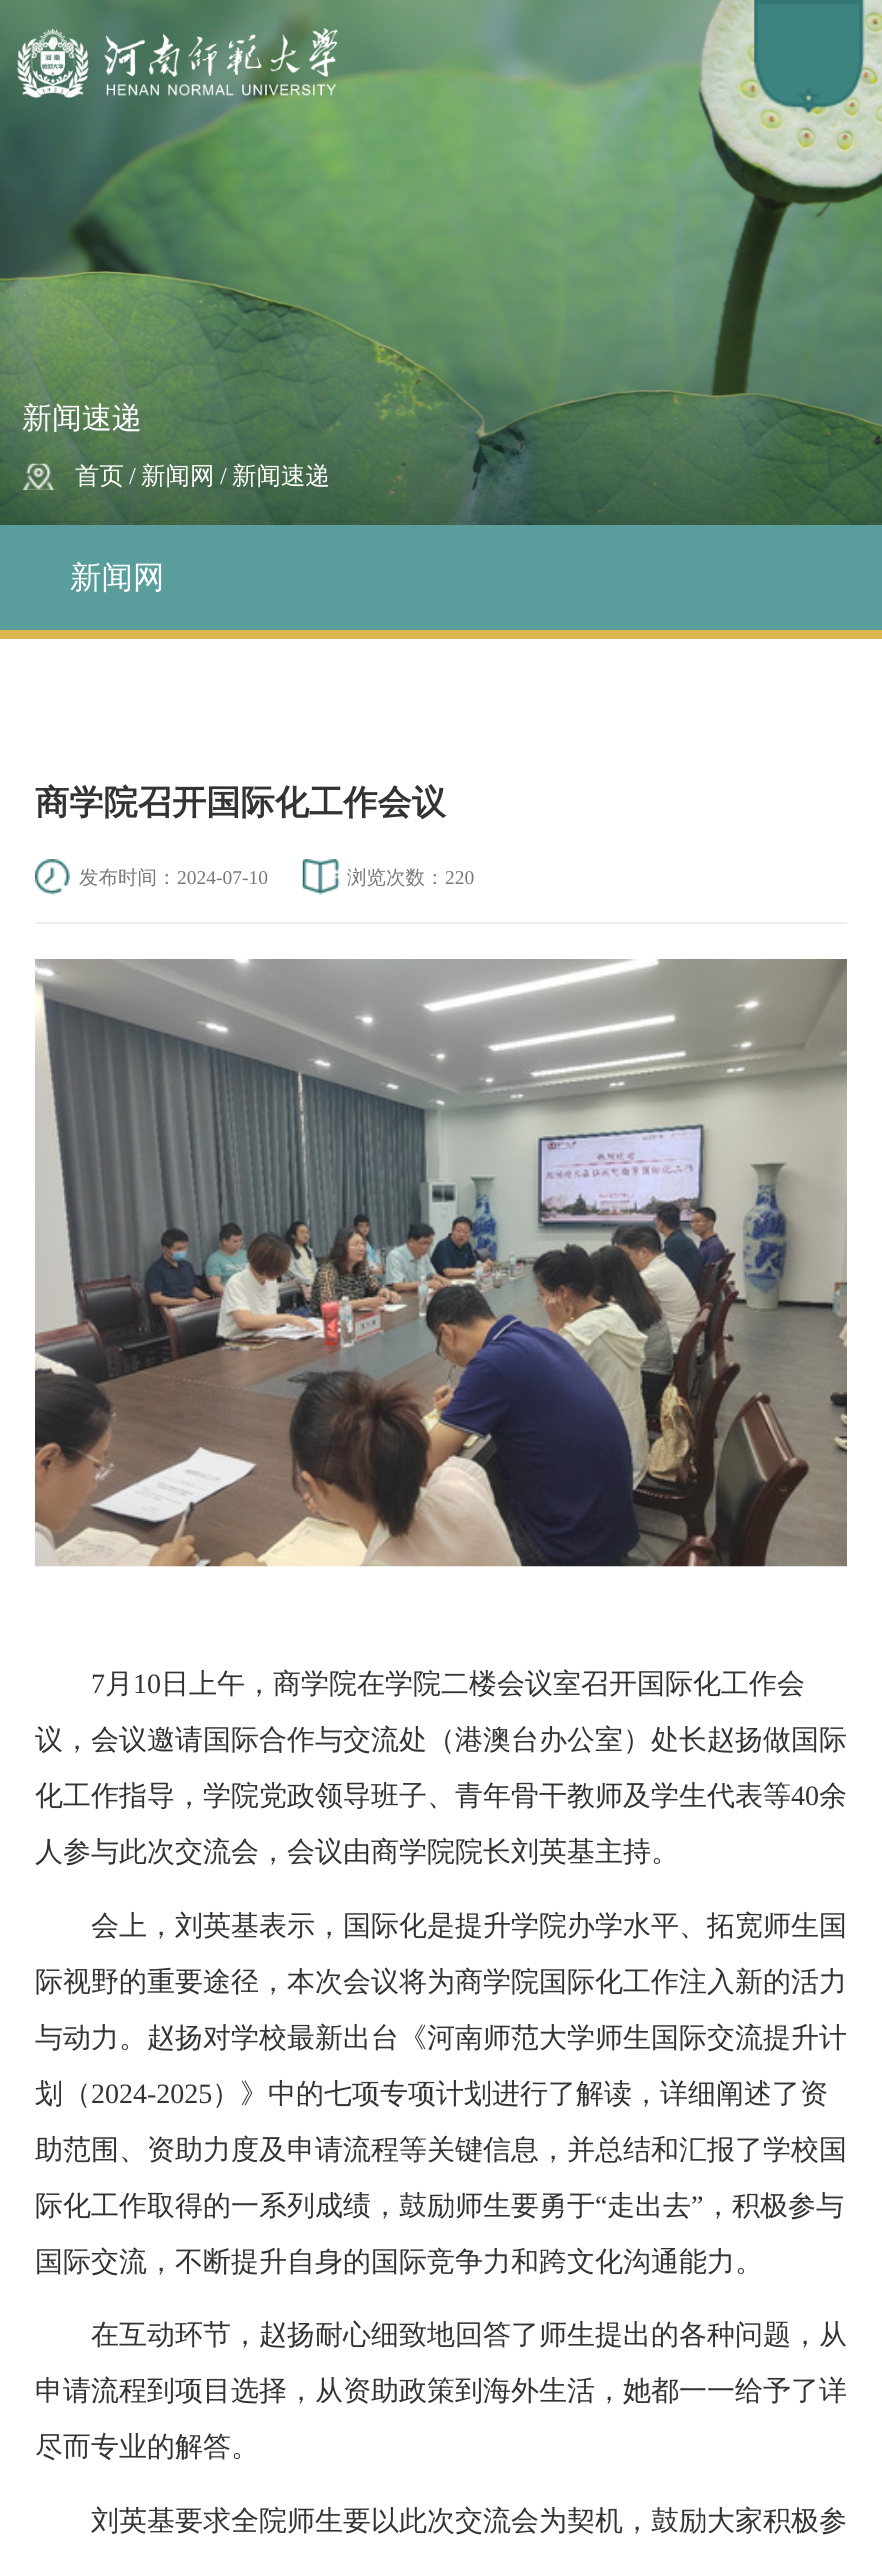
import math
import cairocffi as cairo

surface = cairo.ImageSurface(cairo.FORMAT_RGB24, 882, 2573)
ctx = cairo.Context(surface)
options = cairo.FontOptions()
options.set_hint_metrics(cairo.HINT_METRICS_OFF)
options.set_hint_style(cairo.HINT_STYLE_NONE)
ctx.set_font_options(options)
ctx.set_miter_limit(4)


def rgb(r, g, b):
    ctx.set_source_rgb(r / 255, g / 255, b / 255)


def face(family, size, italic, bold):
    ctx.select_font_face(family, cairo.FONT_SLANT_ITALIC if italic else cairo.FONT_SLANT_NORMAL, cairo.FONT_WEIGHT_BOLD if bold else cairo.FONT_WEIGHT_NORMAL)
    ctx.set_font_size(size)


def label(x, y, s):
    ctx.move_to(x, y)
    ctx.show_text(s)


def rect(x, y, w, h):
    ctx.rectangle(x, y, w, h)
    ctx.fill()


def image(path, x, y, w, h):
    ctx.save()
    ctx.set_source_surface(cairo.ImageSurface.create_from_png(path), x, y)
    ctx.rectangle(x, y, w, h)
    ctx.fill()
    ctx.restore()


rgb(255, 255, 255)
ctx.paint()
image('image3.png', 0, 0, 882, 525)
image('image0.png', 17, 28, 321, 70)
image('image1.png', 754, 0, 111, 114)
image('image2.png', 0, 172, 882, 353)
face('WenQuanYi Zen Hei Medium', 30, 0, 0)
rgb(255, 255, 255)
label(22, 428, '新闻速递')
image('image4.png', 22, 463, 33, 27)
face('WenQuanYi Zen Hei Medium', 24.5, 0, 0)
label(75, 484, '首页')
face('Liberation Serif', 24.5, 0, 0)
label(129, 484, '/')
face('WenQuanYi Zen Hei Medium', 24.5, 0, 0)
label(141, 484, '新闻网')
face('Liberation Serif', 24.5, 0, 0)
label(220, 484, '/')
face('WenQuanYi Zen Hei Medium', 24.5, 0, 0)
label(232, 484, '新闻速递')
rgb(89, 157, 156)
rect(0, 525, 882, 105)
rgb(219, 182, 81)
rect(0, 630, 882, 9)
face('WenQuanYi Zen Hei Medium', 31.5, 0, 0)
rgb(255, 255, 255)
label(70, 588, '新闻网')
face('WenQuanYi Zen Hei', 34.25, 0, 1)
rgb(51, 51, 51)
label(35, 814, '商学院召开国际化工作会议')
rgb(236, 236, 236)
rect(35, 922, 812, 2)
image('image5.png', 35, 859, 35, 36)
face('WenQuanYi Zen Hei Medium', 19.5, 0, 0)
rgb(120, 120, 120)
label(79, 884, '发布时间：')
face('Liberation Serif', 19.5, 0, 0)
label(177, 884, '2024-07-10')
image('image6.png', 302, 859, 38, 36)
face('WenQuanYi Zen Hei Medium', 19.5, 0, 0)
label(347, 884, '浏览次数：')
face('Liberation Serif', 19.5, 0, 0)
label(445, 884, '220')
image('image7.png', 35, 959, 812, 608)
face('Liberation Serif', 28, 0, 0)
rgb(51, 51, 51)
label(91, 1693, '7')
face('WenQuanYi Zen Hei Medium', 28, 0, 0)
label(105, 1693, '月')
face('Liberation Serif', 28, 0, 0)
label(133, 1693, '10')
face('WenQuanYi Zen Hei Medium', 28, 0, 0)
label(161, 1693, '日上午，商学院在学院二楼会议室召开国际化工作会')
label(35, 1749, '议，会议邀请国际合作与交流处（港澳台办公室）处长赵扬做国际')
label(35, 1805, '化工作指导，学院党政领导班子、青年骨干教师及学生代表等')
face('Liberation Serif', 28, 0, 0)
label(791, 1805, '40')
face('WenQuanYi Zen Hei Medium', 28, 0, 0)
label(819, 1805, '余')
label(35, 1861, '人参与此次交流会，会议由商学院院长刘英基主持。')
label(91, 1935, '会上，刘英基表示，国际化是提升学院办学水平、拓宽师生国')
label(35, 1991, '际视野的重要途径，本次会议将为商学院国际化工作注入新的活力')
label(35, 2047, '与动力。赵扬对学校最新出台《河南师范大学师生国际交流提升计')
label(35, 2103, '划（')
face('Liberation Serif', 28, 0, 0)
label(91, 2103, '2024-2025')
face('WenQuanYi Zen Hei Medium', 28, 0, 0)
label(212, 2103, '）》中的七项专项计划进行了解读，详细阐述了资')
label(35, 2159, '助范围、资助力度及申请流程等关键信息，并总结和汇报了学校国')
label(35, 2215, '际化工作取得的一系列成绩，鼓励师生要勇于')
face('Liberation Serif', 28, 0, 0)
label(595, 2215, '“')
face('WenQuanYi Zen Hei Medium', 28, 0, 0)
label(607, 2215, '走出去')
face('Liberation Serif', 28, 0, 0)
label(691, 2215, '”')
face('WenQuanYi Zen Hei Medium', 28, 0, 0)
label(704, 2215, '，积极参与')
label(35, 2271, '国际交流，不断提升自身的国际竞争力和跨文化沟通能力。')
label(91, 2344, '在互动环节，赵扬耐心细致地回答了师生提出的各种问题，从')
label(35, 2400, '申请流程到项目选择，从资助政策到海外生活，她都一一给予了详')
label(35, 2456, '尽而专业的解答。')
label(91, 2530, '刘英基要求全院师生要以此次交流会为契机，鼓励大家积极参')
surface.write_to_png('render.png')
